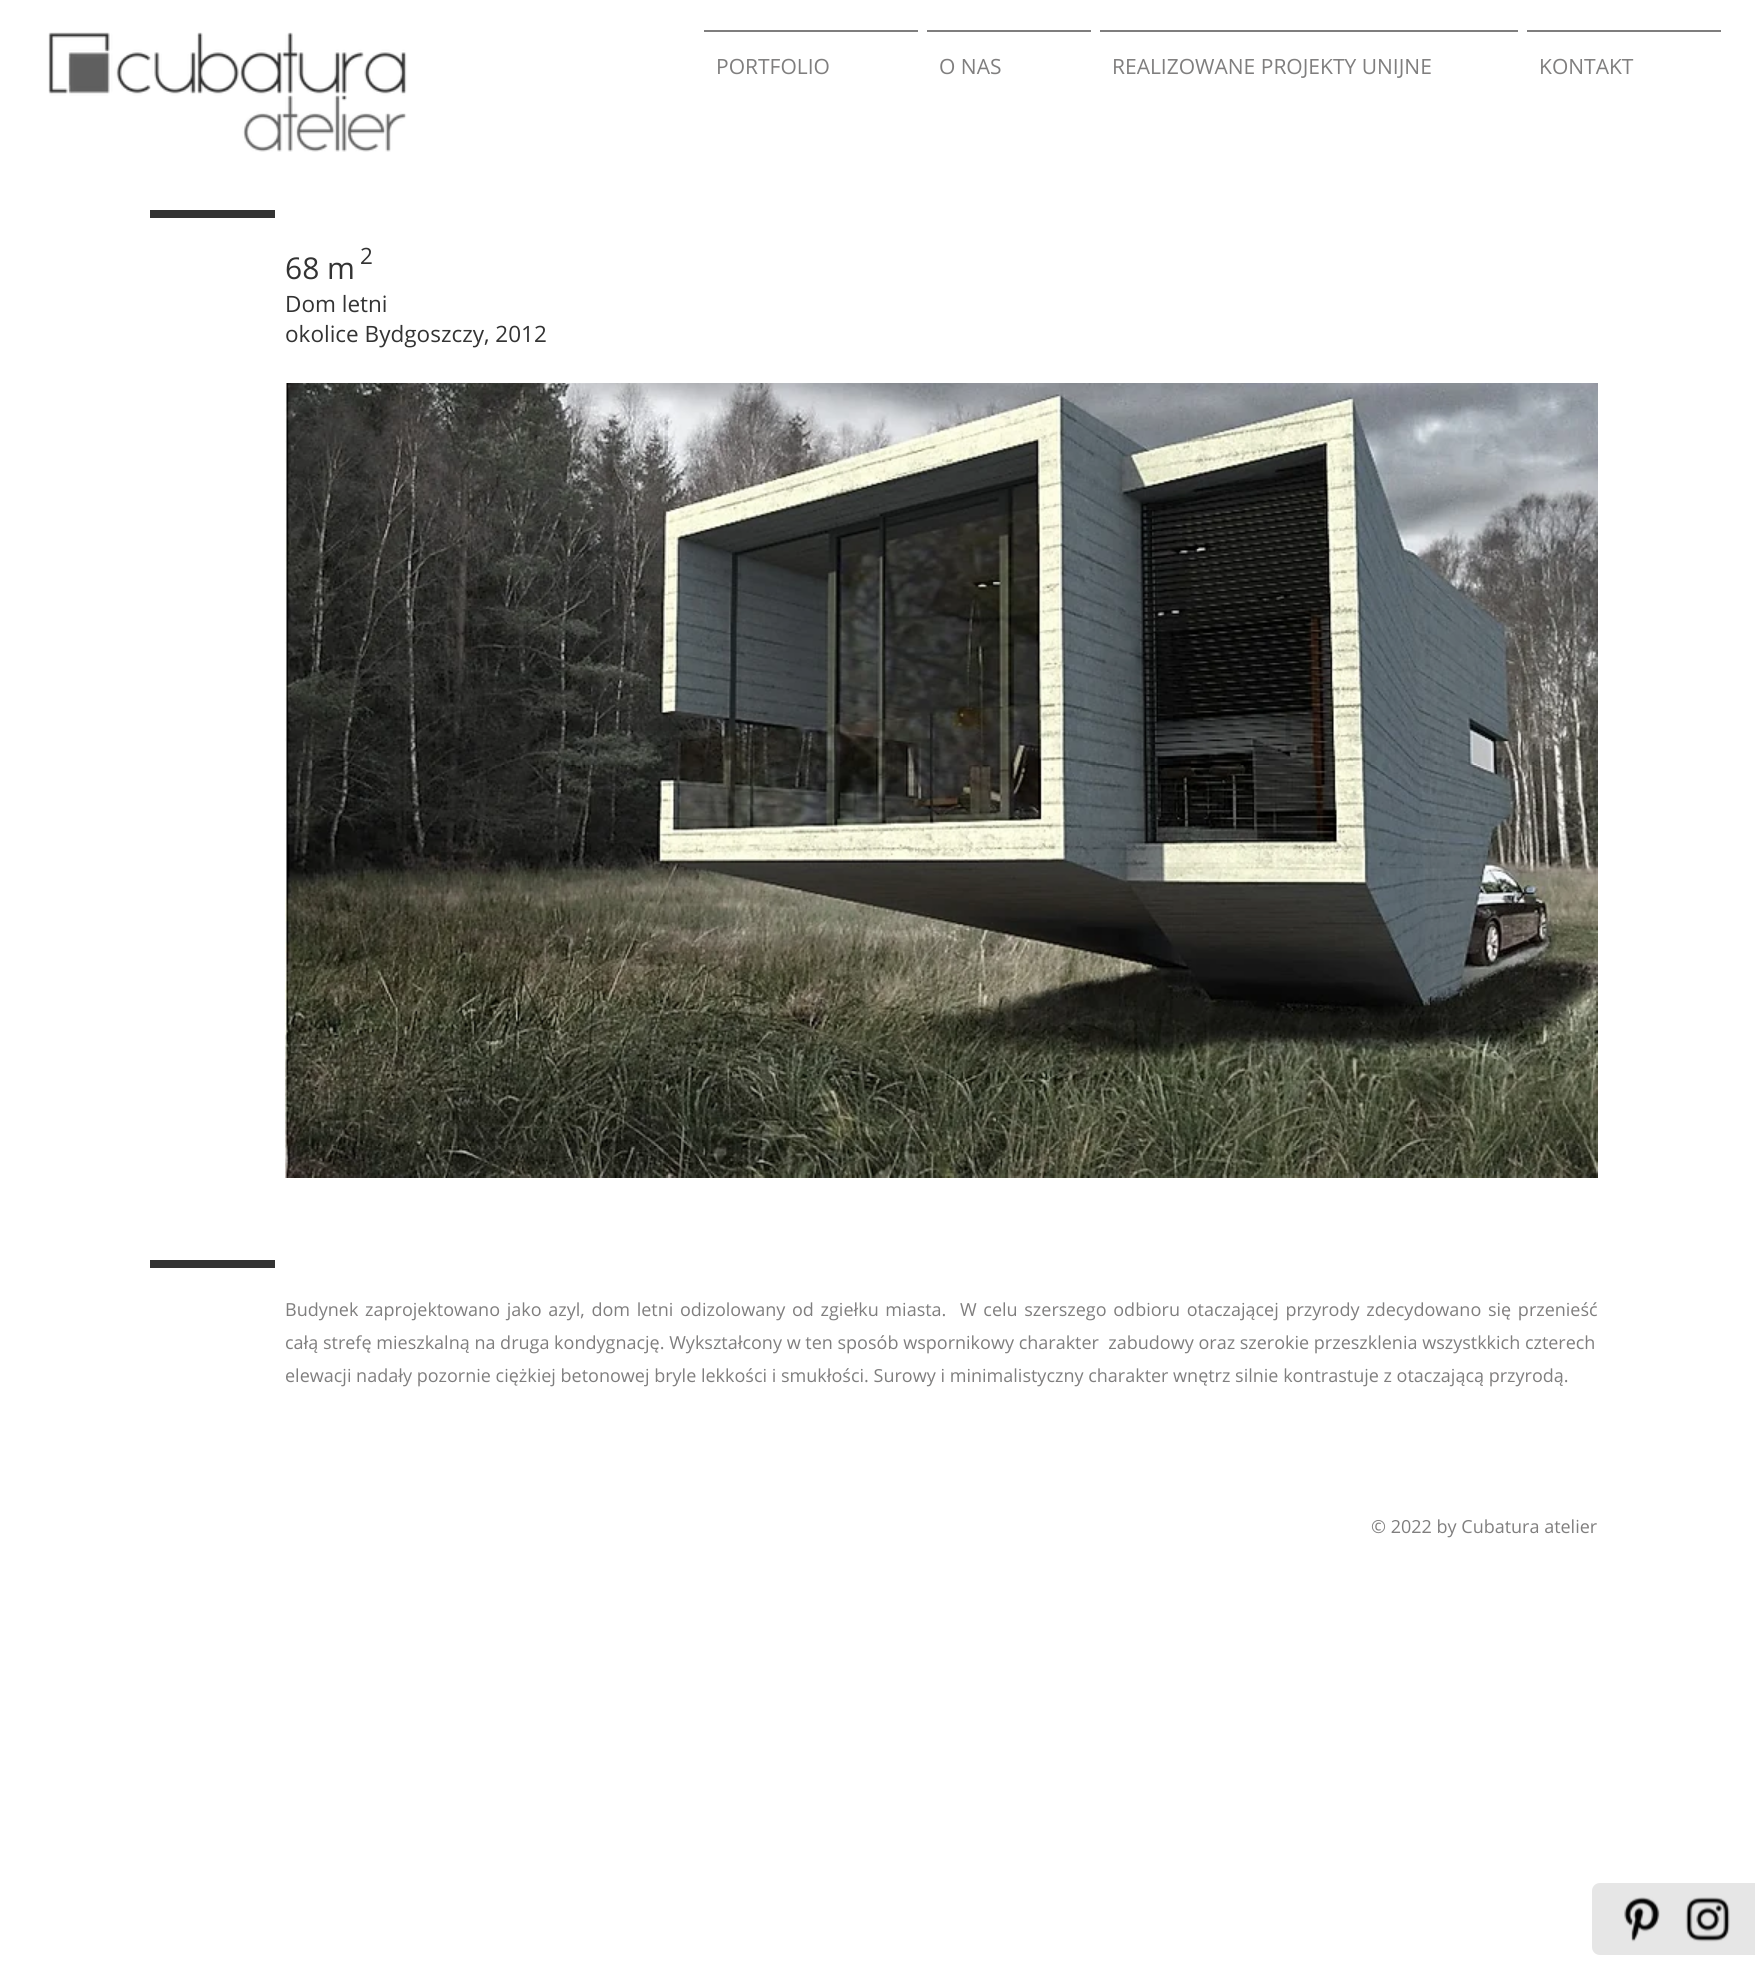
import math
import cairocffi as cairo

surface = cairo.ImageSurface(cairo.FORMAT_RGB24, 1755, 1984)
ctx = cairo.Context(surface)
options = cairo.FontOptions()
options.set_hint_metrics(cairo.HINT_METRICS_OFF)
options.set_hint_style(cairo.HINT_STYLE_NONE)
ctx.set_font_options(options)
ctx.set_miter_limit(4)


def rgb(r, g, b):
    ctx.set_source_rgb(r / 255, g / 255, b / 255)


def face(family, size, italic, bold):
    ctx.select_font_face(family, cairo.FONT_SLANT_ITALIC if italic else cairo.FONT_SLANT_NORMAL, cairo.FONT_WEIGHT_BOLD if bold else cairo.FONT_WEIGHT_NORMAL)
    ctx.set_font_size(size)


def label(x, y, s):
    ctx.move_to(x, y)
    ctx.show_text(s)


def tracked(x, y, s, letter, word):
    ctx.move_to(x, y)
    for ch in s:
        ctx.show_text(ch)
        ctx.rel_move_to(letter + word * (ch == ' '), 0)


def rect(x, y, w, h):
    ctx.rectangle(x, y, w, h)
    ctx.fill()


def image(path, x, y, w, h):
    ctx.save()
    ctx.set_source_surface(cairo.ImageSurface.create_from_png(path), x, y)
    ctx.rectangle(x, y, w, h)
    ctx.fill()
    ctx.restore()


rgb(255, 255, 255)
ctx.paint()
image('image0.png', 48, 32, 359, 120)
rgb(127, 126, 126)
rect(704, 30, 214, 2)
face('Open Sans', 21, 0, 0)
label(716, 74, 'PORTFOLIO')
rect(927, 30, 164, 2)
label(939, 74, 'O NAS')
rect(1100, 30, 418, 2)
label(1112, 74, 'REALIZOWANE PROJEKTY UNIJNE')
rect(1527, 30, 194, 2)
label(1539, 74, 'KONTAKT')
rgb(51, 51, 51)
rect(150, 210, 125, 8)
face('Open Sans', 22.5, 0, 0)
label(360, 264, '2')
face('Open Sans', 30, 0, 0)
label(285, 279, '68 m')
face('Open Sans', 22.5, 0, 0)
label(285, 312, 'Dom letni')
label(285, 342, 'okolice Bydgoszczy, 2012')
image('image1.png', 285, 383, 1313, 795)
face('Open Sans', 14, 0, 0)
rgb(46, 47, 38)
label(445, 1157, '.')
rgb(51, 51, 51)
rect(150, 1260, 125, 8)
face('Open Sans', 18, 0, 0)
rgb(127, 126, 126)
tracked(285, 1316, 'Budynek zaprojektowano jako azyl, dom letni odizolowany od zgiełku miasta.', 0, 2)
tracked(960, 1316, 'W celu szerszego odbioru otaczającej przyrody zdecydowano się przenieść', 0, 2)
label(285, 1349, 'całą strefę mieszkalną na druga kondygnację. Wykształcony w ten sposób wspornikowy charakter  zabudowy oraz szerokie przeszklenia wszystkkich czterech')
label(285, 1382, 'elewacji nadały pozornie ciężkiej betonowej bryle lekkości i smukłości. Surowy i minimalistyczny charakter wnętrz silnie kontrastuje z otaczającą przyrodą.')
label(1371, 1533, '© 2022 by Cubatura atelier')
rgb(230, 230, 230)
ctx.new_path()
ctx.move_to(1600, 1883)
ctx.line_to(1755, 1883)
ctx.line_to(1755, 1955)
ctx.line_to(1600, 1955)
ctx.curve_to(1595.5, 1955, 1592, 1951.5, 1592, 1947)
ctx.line_to(1592, 1891)
ctx.curve_to(1592, 1886.5, 1595.5, 1883, 1600, 1883)
ctx.close_path()
ctx.fill()
image('image2.png', 1624, 1897, 36, 45)
image('image3.png', 1685, 1897, 45, 45)
surface.write_to_png('render.png')
